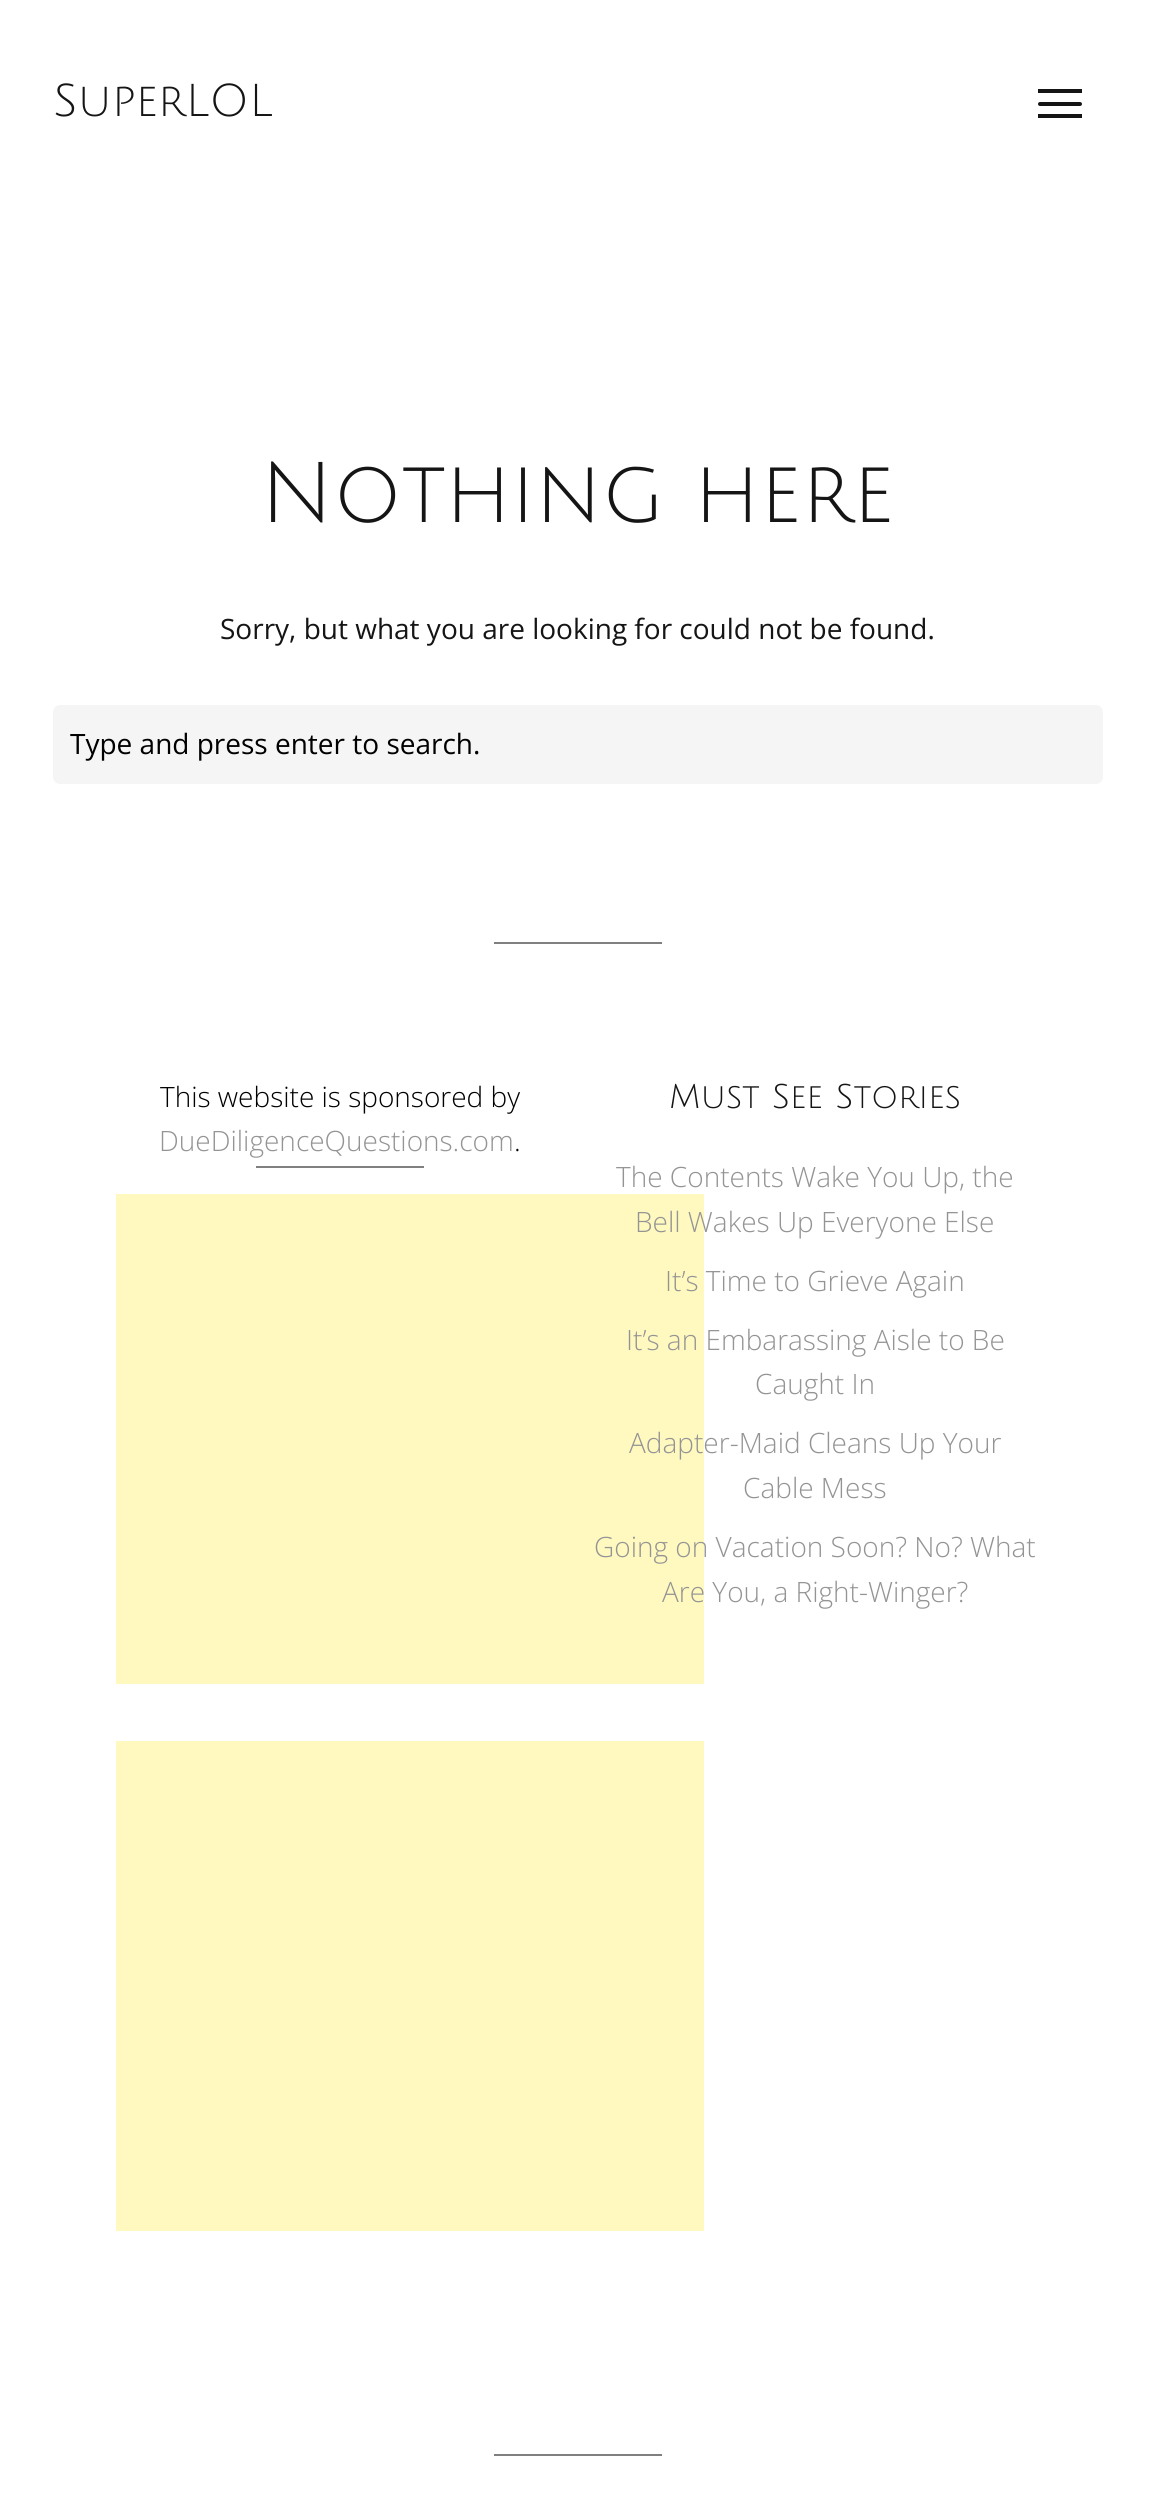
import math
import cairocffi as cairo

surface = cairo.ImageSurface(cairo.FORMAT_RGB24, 1154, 2504)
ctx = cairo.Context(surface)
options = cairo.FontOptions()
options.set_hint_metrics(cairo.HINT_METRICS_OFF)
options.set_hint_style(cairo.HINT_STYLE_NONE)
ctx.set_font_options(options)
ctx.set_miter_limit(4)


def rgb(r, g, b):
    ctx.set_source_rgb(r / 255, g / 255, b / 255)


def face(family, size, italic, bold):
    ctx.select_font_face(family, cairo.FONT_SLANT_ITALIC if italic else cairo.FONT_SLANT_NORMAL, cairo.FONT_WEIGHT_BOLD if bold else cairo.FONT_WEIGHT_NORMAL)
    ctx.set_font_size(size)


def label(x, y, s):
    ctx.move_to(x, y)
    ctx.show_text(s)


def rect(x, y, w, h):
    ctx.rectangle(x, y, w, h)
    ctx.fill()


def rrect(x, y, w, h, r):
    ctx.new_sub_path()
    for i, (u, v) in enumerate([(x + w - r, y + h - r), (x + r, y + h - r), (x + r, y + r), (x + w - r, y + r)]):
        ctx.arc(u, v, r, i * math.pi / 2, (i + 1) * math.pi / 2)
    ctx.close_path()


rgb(255, 255, 255)
ctx.paint()
face('Julius Sans One', 45, 0, 0)
rgb(21, 21, 21)
label(53, 116, 'SuperLOL')
rrect(1038, 102, 44, 4, 2)
ctx.fill()
rect(1038, 89, 44, 4)
rect(1038, 114, 44, 4)
face('Julius Sans One', 84, 0, 0)
label(260, 522, 'Nothing here')
face('Open Sans', 28, 0, 0)
label(220, 639, 'Sorry, but what you are looking for could not be found.')
rgb(245, 245, 245)
rrect(53, 705, 1050, 79, 7)
ctx.fill()
rgb(0, 0, 0)
label(70, 754, 'Type and press enter to search.')
rgb(128, 128, 128)
rect(494, 942, 168, 2)
face('Open Sans Light', 28, 0, 0)
rgb(0, 0, 0)
label(160, 1107, 'This website is sponsored by')
rgb(148, 148, 148)
label(159, 1151, 'DueDiligenceQuestions.com')
rgb(0, 0, 0)
label(514, 1151, '.')
rgb(128, 128, 128)
rect(256, 1166, 168, 2)
rgb(255, 249, 192)
rect(116, 1194, 588, 490)
rect(116, 1741, 588, 490)
face('Julius Sans One', 33.5, 0, 0)
rgb(21, 21, 21)
label(669, 1108, 'Must See Stories')
face('Open Sans Light', 28, 0, 0)
rgb(148, 148, 148)
label(616, 1187, 'The Contents Wake You Up, the')
label(635, 1232, 'Bell Wakes Up Everyone Else')
label(665, 1291, 'It’s Time to Grieve Again')
label(626, 1350, 'It’s an Embarassing Aisle to Be')
label(755, 1394, 'Caught In')
label(629, 1453, 'Adapter-Maid Cleans Up Your')
label(743, 1498, 'Cable Mess')
label(594, 1557, 'Going on Vacation Soon? No? What')
label(662, 1602, 'Are You, a Right-Winger?')
rgb(128, 128, 128)
rect(494, 2454, 168, 2)
surface.write_to_png('render.png')
